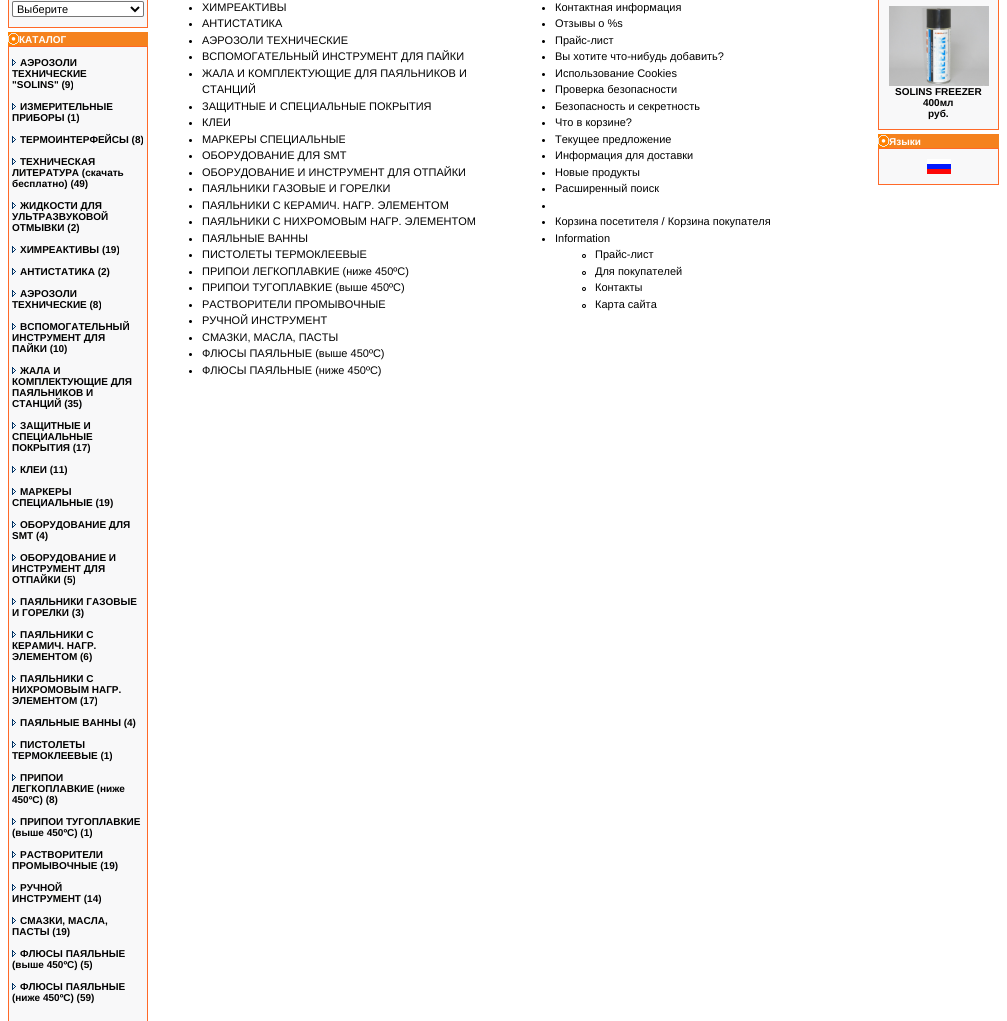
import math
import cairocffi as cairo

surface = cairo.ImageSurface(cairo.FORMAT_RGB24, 1007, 1021)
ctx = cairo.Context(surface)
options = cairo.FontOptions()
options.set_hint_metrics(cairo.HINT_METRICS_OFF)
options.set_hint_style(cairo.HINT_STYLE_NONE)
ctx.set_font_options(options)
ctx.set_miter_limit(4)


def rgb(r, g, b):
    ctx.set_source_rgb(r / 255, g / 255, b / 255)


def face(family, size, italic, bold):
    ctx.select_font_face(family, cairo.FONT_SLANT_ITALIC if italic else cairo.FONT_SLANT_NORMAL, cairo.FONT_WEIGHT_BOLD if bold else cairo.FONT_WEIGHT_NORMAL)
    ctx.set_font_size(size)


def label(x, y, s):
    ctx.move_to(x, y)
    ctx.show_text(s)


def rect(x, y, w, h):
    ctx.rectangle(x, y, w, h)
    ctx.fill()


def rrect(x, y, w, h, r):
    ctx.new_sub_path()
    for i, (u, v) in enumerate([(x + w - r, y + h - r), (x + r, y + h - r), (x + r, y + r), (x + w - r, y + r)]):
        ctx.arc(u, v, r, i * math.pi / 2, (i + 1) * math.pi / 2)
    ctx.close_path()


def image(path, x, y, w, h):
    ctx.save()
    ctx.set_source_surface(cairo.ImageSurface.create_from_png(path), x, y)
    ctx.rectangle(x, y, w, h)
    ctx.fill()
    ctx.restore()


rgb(255, 255, 255)
ctx.paint()
rgb(255, 105, 40)
rect(8, 0, 140, 28)
rgb(248, 248, 249)
rect(9, 0, 138, 27)
rgb(255, 255, 255)
rrect(12.5, 1.5, 131, 15, 1.5)
ctx.fill_preserve()
rgb(118, 118, 118)
ctx.set_line_width(1)
ctx.stroke()
ctx.new_path()
ctx.move_to(131, 7)
ctx.line_to(135, 11)
ctx.line_to(139, 7)
rgb(0, 0, 0)
ctx.set_line_width(2)
ctx.stroke()
face('Liberation Sans', 11, 0, 0)
label(17, 13, 'Выберите')
image('image0.png', 8, 32, 11, 14)
rgb(245, 130, 30)
rect(19, 32, 129, 14)
face('Liberation Sans', 10, 0, 1)
rgb(255, 255, 255)
label(19, 43, 'КАТАЛОГ')
rgb(255, 105, 40)
rect(8, 46, 140, 975)
rgb(248, 248, 249)
rect(9, 47, 138, 974)
image('image1.png', 12, 59, 4, 7)
rgb(0, 0, 0)
label(20, 66, 'АЭРОЗОЛИ')
label(12, 77, 'ТЕХНИЧЕСКИЕ')
label(12, 88, '"SOLINS" (9)')
image('image1.png', 12, 103, 4, 7)
label(20, 110, 'ИЗМЕРИТЕЛЬНЫЕ')
label(12, 121, 'ПРИБОРЫ (1)')
image('image1.png', 12, 136, 4, 7)
label(20, 143, 'ТЕРМОИНТЕРФЕЙСЫ (8)')
image('image1.png', 12, 158, 4, 7)
label(20, 165, 'ТЕХНИЧЕСКАЯ')
label(12, 176, 'ЛИТЕРАТУРА (скачать')
label(12, 187, 'бесплатно) (49)')
image('image1.png', 12, 202, 4, 7)
label(20, 209, 'ЖИДКОСТИ ДЛЯ')
label(12, 220, 'УЛЬТРАЗВУКОВОЙ')
label(12, 231, 'ОТМЫВКИ (2)')
image('image1.png', 12, 246, 4, 7)
label(20, 253, 'ХИМРЕАКТИВЫ (19)')
image('image1.png', 12, 268, 4, 7)
label(20, 275, 'АНТИСТАТИКА (2)')
image('image1.png', 12, 290, 4, 7)
label(20, 297, 'АЭРОЗОЛИ')
label(12, 308, 'ТЕХНИЧЕСКИЕ (8)')
image('image1.png', 12, 323, 4, 7)
label(20, 330, 'ВСПОМОГАТЕЛЬНЫЙ')
label(12, 341, 'ИНСТРУМЕНТ ДЛЯ')
label(12, 352, 'ПАЙКИ (10)')
image('image1.png', 12, 367, 4, 7)
label(20, 374, 'ЖАЛА И')
label(12, 385, 'КОМПЛЕКТУЮЩИЕ ДЛЯ')
label(12, 396, 'ПАЯЛЬНИКОВ И')
label(12, 407, 'СТАНЦИЙ (35)')
image('image1.png', 12, 422, 4, 7)
label(20, 429, 'ЗАЩИТНЫЕ И')
label(12, 440, 'СПЕЦИАЛЬНЫЕ')
label(12, 451, 'ПОКРЫТИЯ (17)')
image('image1.png', 12, 466, 4, 7)
label(20, 473, 'КЛЕИ (11)')
image('image1.png', 12, 488, 4, 7)
label(20, 495, 'МАРКЕРЫ')
label(12, 506, 'СПЕЦИАЛЬНЫЕ (19)')
image('image1.png', 12, 521, 4, 7)
label(20, 528, 'ОБОРУДОВАНИЕ ДЛЯ')
label(12, 539, 'SMT (4)')
image('image1.png', 12, 554, 4, 7)
label(20, 561, 'ОБОРУДОВАНИЕ И')
label(12, 572, 'ИНСТРУМЕНТ ДЛЯ')
label(12, 583, 'ОТПАЙКИ (5)')
image('image1.png', 12, 598, 4, 7)
label(20, 605, 'ПАЯЛЬНИКИ ГАЗОВЫЕ')
label(12, 616, 'И ГОРЕЛКИ (3)')
image('image1.png', 12, 631, 4, 7)
label(20, 638, 'ПАЯЛЬНИКИ С')
label(12, 649, 'КЕРАМИЧ. НАГР.')
label(12, 660, 'ЭЛЕМЕНТОМ (6)')
image('image1.png', 12, 675, 4, 7)
label(20, 682, 'ПАЯЛЬНИКИ С')
label(12, 693, 'НИХРОМОВЫМ НАГР.')
label(12, 704, 'ЭЛЕМЕНТОМ (17)')
image('image1.png', 12, 719, 4, 7)
label(20, 726, 'ПАЯЛЬНЫЕ ВАННЫ (4)')
image('image1.png', 12, 741, 4, 7)
label(20, 748, 'ПИСТОЛЕТЫ')
label(12, 759, 'ТЕРМОКЛЕЕВЫЕ (1)')
image('image1.png', 12, 774, 4, 7)
label(20, 781, 'ПРИПОИ')
label(12, 792, 'ЛЕГКОПЛАВКИЕ (ниже')
label(12, 803, '450ºС) (8)')
image('image1.png', 12, 818, 4, 7)
label(20, 825, 'ПРИПОИ ТУГОПЛАВКИЕ')
label(12, 836, '(выше 450ºС) (1)')
image('image1.png', 12, 851, 4, 7)
label(20, 858, 'РАСТВОРИТЕЛИ')
label(12, 869, 'ПРОМЫВОЧНЫЕ (19)')
image('image1.png', 12, 884, 4, 7)
label(20, 891, 'РУЧНОЙ')
label(12, 902, 'ИНСТРУМЕНТ (14)')
image('image1.png', 12, 917, 4, 7)
label(20, 924, 'СМАЗКИ, МАСЛА,')
label(12, 935, 'ПАСТЫ (19)')
image('image1.png', 12, 950, 4, 7)
label(20, 957, 'ФЛЮСЫ ПАЯЛЬНЫЕ')
label(12, 968, '(выше 450ºC) (5)')
image('image1.png', 12, 983, 4, 7)
label(20, 990, 'ФЛЮСЫ ПАЯЛЬНЫЕ')
label(12, 1001, '(ниже 450ºC) (59)')
ctx.new_path()
ctx.arc(190.5, 8.5, 1.5, 0, 2 * math.pi)
ctx.fill()
face('Liberation Sans', 11, 0, 0)
label(202, 11, 'ХИМРЕАКТИВЫ')
ctx.new_path()
ctx.arc(190.5, 24.5, 1.5, 0, 2 * math.pi)
ctx.fill()
label(202, 27, 'АНТИСТАТИКА')
ctx.new_path()
ctx.arc(190.5, 41.5, 1.5, 0, 2 * math.pi)
ctx.fill()
label(202, 44, 'АЭРОЗОЛИ ТЕХНИЧЕСКИЕ')
ctx.new_path()
ctx.arc(190.5, 57.5, 1.5, 0, 2 * math.pi)
ctx.fill()
label(202, 60, 'ВСПОМОГАТЕЛЬНЫЙ ИНСТРУМЕНТ ДЛЯ ПАЙКИ')
ctx.new_path()
ctx.arc(190.5, 74.5, 1.5, 0, 2 * math.pi)
ctx.fill()
label(202, 77, 'ЖАЛА И КОМПЛЕКТУЮЩИЕ ДЛЯ ПАЯЛЬНИКОВ И')
label(202, 93, 'СТАНЦИЙ')
ctx.new_path()
ctx.arc(190.5, 107.5, 1.5, 0, 2 * math.pi)
ctx.fill()
label(202, 110, 'ЗАЩИТНЫЕ И СПЕЦИАЛЬНЫЕ ПОКРЫТИЯ')
ctx.new_path()
ctx.arc(190.5, 123.5, 1.5, 0, 2 * math.pi)
ctx.fill()
label(202, 126, 'КЛЕИ')
ctx.new_path()
ctx.arc(190.5, 140.5, 1.5, 0, 2 * math.pi)
ctx.fill()
label(202, 143, 'МАРКЕРЫ СПЕЦИАЛЬНЫЕ')
ctx.new_path()
ctx.arc(190.5, 156.5, 1.5, 0, 2 * math.pi)
ctx.fill()
label(202, 159, 'ОБОРУДОВАНИЕ ДЛЯ SMT')
ctx.new_path()
ctx.arc(190.5, 173.5, 1.5, 0, 2 * math.pi)
ctx.fill()
label(202, 176, 'ОБОРУДОВАНИЕ И ИНСТРУМЕНТ ДЛЯ ОТПАЙКИ')
ctx.new_path()
ctx.arc(190.5, 189.5, 1.5, 0, 2 * math.pi)
ctx.fill()
label(202, 192, 'ПАЯЛЬНИКИ ГАЗОВЫЕ И ГОРЕЛКИ')
ctx.new_path()
ctx.arc(190.5, 206.5, 1.5, 0, 2 * math.pi)
ctx.fill()
label(202, 209, 'ПАЯЛЬНИКИ С КЕРАМИЧ. НАГР. ЭЛЕМЕНТОМ')
ctx.new_path()
ctx.arc(190.5, 222.5, 1.5, 0, 2 * math.pi)
ctx.fill()
label(202, 225, 'ПАЯЛЬНИКИ С НИХРОМОВЫМ НАГР. ЭЛЕМЕНТОМ')
ctx.new_path()
ctx.arc(190.5, 239.5, 1.5, 0, 2 * math.pi)
ctx.fill()
label(202, 242, 'ПАЯЛЬНЫЕ ВАННЫ')
ctx.new_path()
ctx.arc(190.5, 255.5, 1.5, 0, 2 * math.pi)
ctx.fill()
label(202, 258, 'ПИСТОЛЕТЫ ТЕРМОКЛЕЕВЫЕ')
ctx.new_path()
ctx.arc(190.5, 272.5, 1.5, 0, 2 * math.pi)
ctx.fill()
label(202, 275, 'ПРИПОИ ЛЕГКОПЛАВКИЕ (ниже 450ºС)')
ctx.new_path()
ctx.arc(190.5, 288.5, 1.5, 0, 2 * math.pi)
ctx.fill()
label(202, 291, 'ПРИПОИ ТУГОПЛАВКИЕ (выше 450ºС)')
ctx.new_path()
ctx.arc(190.5, 305.5, 1.5, 0, 2 * math.pi)
ctx.fill()
label(202, 308, 'РАСТВОРИТЕЛИ ПРОМЫВОЧНЫЕ')
ctx.new_path()
ctx.arc(190.5, 321.5, 1.5, 0, 2 * math.pi)
ctx.fill()
label(202, 324, 'РУЧНОЙ ИНСТРУМЕНТ')
ctx.new_path()
ctx.arc(190.5, 338.5, 1.5, 0, 2 * math.pi)
ctx.fill()
label(202, 341, 'СМАЗКИ, МАСЛА, ПАСТЫ')
ctx.new_path()
ctx.arc(190.5, 354.5, 1.5, 0, 2 * math.pi)
ctx.fill()
label(202, 357, 'ФЛЮСЫ ПАЯЛЬНЫЕ (выше 450ºC)')
ctx.new_path()
ctx.arc(190.5, 371.5, 1.5, 0, 2 * math.pi)
ctx.fill()
label(202, 374, 'ФЛЮСЫ ПАЯЛЬНЫЕ (ниже 450ºC)')
ctx.new_path()
ctx.arc(543.5, 8.5, 1.5, 0, 2 * math.pi)
ctx.fill()
label(555, 11, 'Контактная информация')
ctx.new_path()
ctx.arc(543.5, 24.5, 1.5, 0, 2 * math.pi)
ctx.fill()
label(555, 27, 'Отзывы о %s')
ctx.new_path()
ctx.arc(543.5, 41.5, 1.5, 0, 2 * math.pi)
ctx.fill()
label(555, 44, 'Прайс-лист')
ctx.new_path()
ctx.arc(543.5, 57.5, 1.5, 0, 2 * math.pi)
ctx.fill()
label(555, 60, 'Вы хотите что-нибудь добавить?')
ctx.new_path()
ctx.arc(543.5, 74.5, 1.5, 0, 2 * math.pi)
ctx.fill()
label(555, 77, 'Использование Cookies')
ctx.new_path()
ctx.arc(543.5, 90.5, 1.5, 0, 2 * math.pi)
ctx.fill()
label(555, 93, 'Проверка безопасности')
ctx.new_path()
ctx.arc(543.5, 107.5, 1.5, 0, 2 * math.pi)
ctx.fill()
label(555, 110, 'Безопасность и секретность')
ctx.new_path()
ctx.arc(543.5, 123.5, 1.5, 0, 2 * math.pi)
ctx.fill()
label(555, 126, 'Что в корзине?')
ctx.new_path()
ctx.arc(543.5, 140.5, 1.5, 0, 2 * math.pi)
ctx.fill()
label(555, 143, 'Текущее предложение')
ctx.new_path()
ctx.arc(543.5, 156.5, 1.5, 0, 2 * math.pi)
ctx.fill()
label(555, 159, 'Информация для доставки')
ctx.new_path()
ctx.arc(543.5, 173.5, 1.5, 0, 2 * math.pi)
ctx.fill()
label(555, 176, 'Новые продукты')
ctx.new_path()
ctx.arc(543.5, 189.5, 1.5, 0, 2 * math.pi)
ctx.fill()
label(555, 192, 'Расширенный поиск')
ctx.new_path()
ctx.arc(543.5, 206.5, 1.5, 0, 2 * math.pi)
ctx.fill()
ctx.arc(543.5, 222.5, 1.5, 0, 2 * math.pi)
ctx.fill()
label(555, 225, 'Корзина посетителя / Корзина покупателя')
ctx.new_path()
ctx.arc(543.5, 239.5, 1.5, 0, 2 * math.pi)
ctx.fill()
label(555, 242, 'Information')
ctx.new_path()
ctx.arc(584, 256, 1.5, 0, 2 * math.pi)
ctx.set_line_width(1)
ctx.stroke()
label(595, 258, 'Прайс-лист')
ctx.new_path()
ctx.arc(584, 273, 1.5, 0, 2 * math.pi)
ctx.stroke()
label(595, 275, 'Для покупателей')
ctx.new_path()
ctx.arc(584, 289, 1.5, 0, 2 * math.pi)
ctx.stroke()
label(595, 291, 'Контакты')
ctx.new_path()
ctx.arc(584, 306, 1.5, 0, 2 * math.pi)
ctx.stroke()
label(595, 308, 'Карта сайта')
rgb(255, 105, 40)
rect(878, 0, 121, 130)
rgb(248, 248, 249)
rect(879, 0, 119, 129)
image('image2.png', 889, 6, 100, 80)
face('Liberation Sans', 10, 0, 1)
rgb(0, 0, 0)
label(895, 95, 'SOLINS FREEZER')
label(923, 106, '400мл')
label(928, 117, 'руб.')
image('image0.png', 878, 134, 11, 14)
rgb(245, 130, 30)
rect(889, 134, 110, 14)
rgb(255, 255, 255)
label(889, 145, 'Языки')
rgb(255, 105, 40)
rect(878, 148, 121, 37)
rgb(248, 248, 249)
rect(879, 149, 119, 35)
image('image3.png', 927, 159, 24, 15)
surface.write_to_png('render.png')
